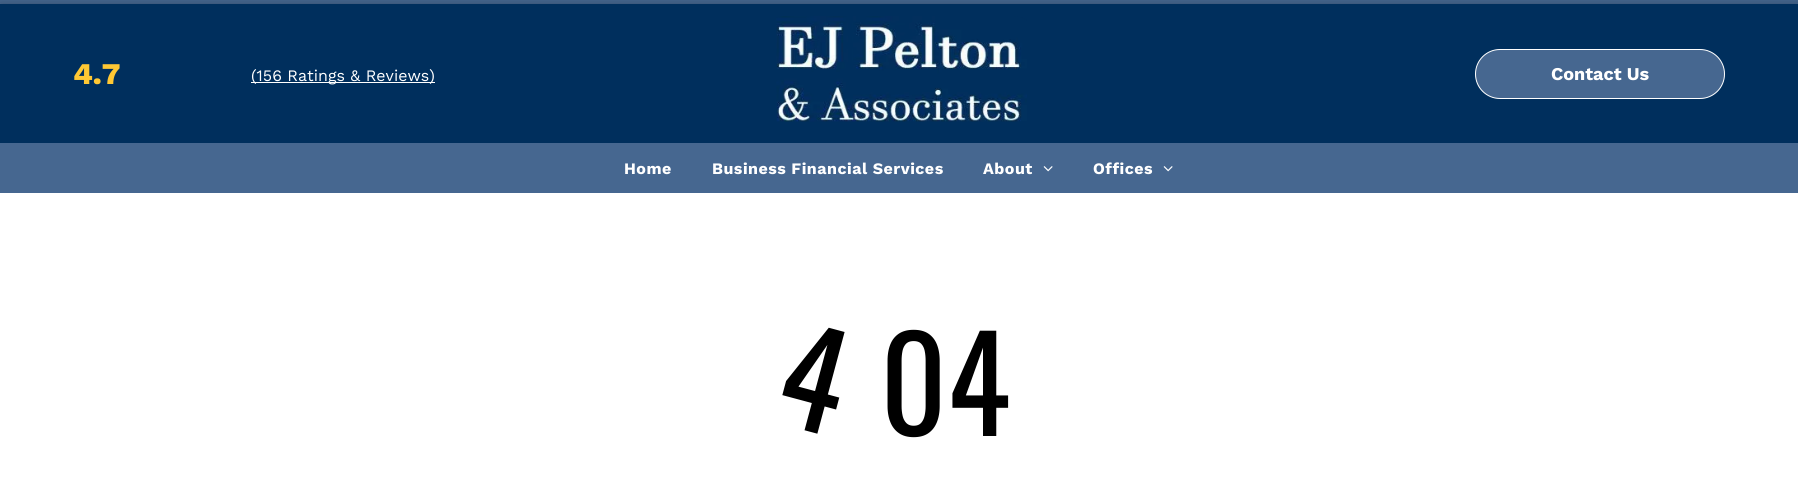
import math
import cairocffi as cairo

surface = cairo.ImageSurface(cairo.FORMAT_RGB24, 1798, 492)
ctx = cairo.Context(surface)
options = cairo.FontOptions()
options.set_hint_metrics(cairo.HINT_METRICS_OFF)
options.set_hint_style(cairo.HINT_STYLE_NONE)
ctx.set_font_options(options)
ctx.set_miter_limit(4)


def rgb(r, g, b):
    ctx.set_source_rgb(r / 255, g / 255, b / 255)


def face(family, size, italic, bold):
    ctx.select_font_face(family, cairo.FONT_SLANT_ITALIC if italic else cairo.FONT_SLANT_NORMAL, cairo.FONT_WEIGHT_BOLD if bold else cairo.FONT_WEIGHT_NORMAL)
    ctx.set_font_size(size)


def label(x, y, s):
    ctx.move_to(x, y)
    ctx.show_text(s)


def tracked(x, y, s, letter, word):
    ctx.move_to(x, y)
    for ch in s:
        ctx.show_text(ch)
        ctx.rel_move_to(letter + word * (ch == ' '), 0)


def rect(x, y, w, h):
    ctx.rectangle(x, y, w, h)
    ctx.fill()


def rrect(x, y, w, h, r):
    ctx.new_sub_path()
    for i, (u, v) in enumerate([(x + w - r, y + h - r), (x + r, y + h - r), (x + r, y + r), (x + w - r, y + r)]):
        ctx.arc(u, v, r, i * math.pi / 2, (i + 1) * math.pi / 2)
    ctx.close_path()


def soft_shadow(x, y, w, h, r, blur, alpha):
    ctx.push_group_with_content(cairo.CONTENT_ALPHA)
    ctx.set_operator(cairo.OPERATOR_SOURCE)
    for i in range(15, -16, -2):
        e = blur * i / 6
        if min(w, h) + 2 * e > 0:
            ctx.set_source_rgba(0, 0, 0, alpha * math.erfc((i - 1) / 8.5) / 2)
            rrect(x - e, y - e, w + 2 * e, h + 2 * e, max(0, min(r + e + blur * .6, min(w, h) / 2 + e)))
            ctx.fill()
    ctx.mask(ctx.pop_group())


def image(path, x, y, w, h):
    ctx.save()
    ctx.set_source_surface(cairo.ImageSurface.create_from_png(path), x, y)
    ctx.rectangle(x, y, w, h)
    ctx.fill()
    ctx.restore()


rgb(0, 47, 93)
ctx.paint()
rgb(70, 103, 144)
rect(0, 0, 1798, 4)
ctx.save()
ctx.rectangle(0, 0, 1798, 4)
ctx.clip()
rgb(0, 0, 0)
soft_shadow(0, 4, 1798, 189, 0, 5.5, 0.25)
ctx.restore()
face('Work Sans ExtraBold', 30, 0, 0)
rgb(255, 200, 52)
label(73, 84, '4.7')
rgb(255, 255, 255)
rect(251, 82, 184, 1)
face('Work Sans', 16, 0, 0)
label(251, 81, '(156 Ratings & Reviews)')
image('image0.png', 776, 16, 251, 106)
rgb(70, 103, 144)
rrect(1475.5, 49.5, 249, 49, 24.5)
ctx.fill_preserve()
rgb(255, 255, 255)
ctx.set_line_width(1)
ctx.stroke()
face('Work Sans', 18, 0, 1)
label(1551, 80, 'Contact Us')
rgb(70, 103, 144)
rect(0, 143, 1798, 50)
face('Work Sans', 16, 0, 1)
rgb(255, 255, 255)
tracked(624, 174, 'Home', 0.5, 0)
tracked(712, 174, 'Business Financial Services', 0.5, 0)
tracked(983, 174, 'About', 0.5, 0)
image('image1.png', 1043, 166, 10, 6)
tracked(1093, 174, 'Offices', 0.5, 0)
image('image1.png', 1163, 166, 10, 6)
rect(0, 193, 1798, 299)
face('Oswald', 130, 0, 0)
rgb(0, 0, 0)
ctx.save()
ctx.translate(770, 421)
ctx.rotate(15 * math.pi / 180)
label(0, 0, '4')
ctx.restore()
label(880, 436, '04')
surface.write_to_png('render.png')
